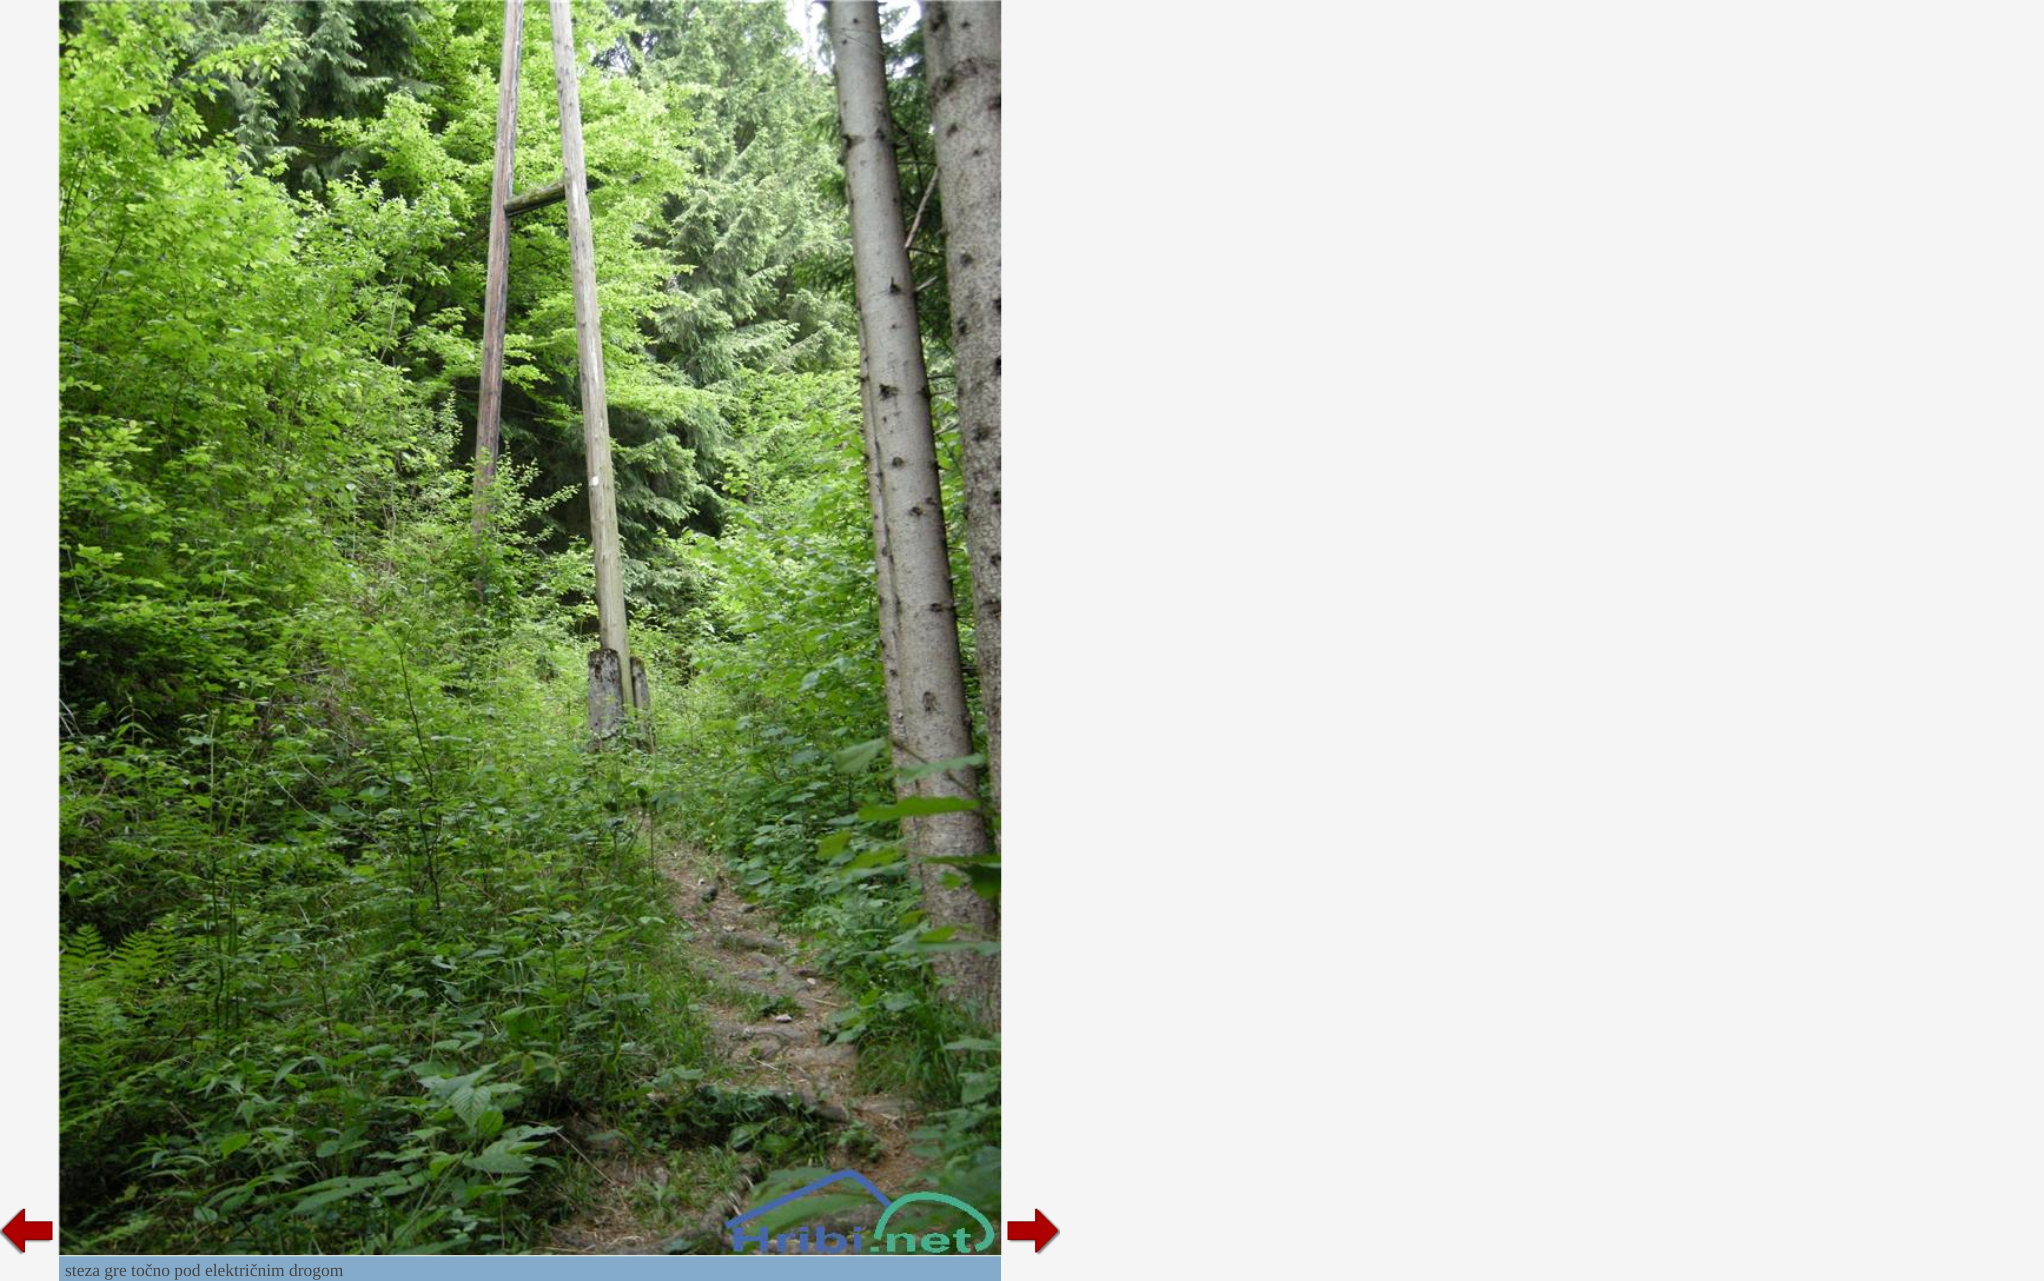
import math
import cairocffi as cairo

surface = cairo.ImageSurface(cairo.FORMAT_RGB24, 2044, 1281)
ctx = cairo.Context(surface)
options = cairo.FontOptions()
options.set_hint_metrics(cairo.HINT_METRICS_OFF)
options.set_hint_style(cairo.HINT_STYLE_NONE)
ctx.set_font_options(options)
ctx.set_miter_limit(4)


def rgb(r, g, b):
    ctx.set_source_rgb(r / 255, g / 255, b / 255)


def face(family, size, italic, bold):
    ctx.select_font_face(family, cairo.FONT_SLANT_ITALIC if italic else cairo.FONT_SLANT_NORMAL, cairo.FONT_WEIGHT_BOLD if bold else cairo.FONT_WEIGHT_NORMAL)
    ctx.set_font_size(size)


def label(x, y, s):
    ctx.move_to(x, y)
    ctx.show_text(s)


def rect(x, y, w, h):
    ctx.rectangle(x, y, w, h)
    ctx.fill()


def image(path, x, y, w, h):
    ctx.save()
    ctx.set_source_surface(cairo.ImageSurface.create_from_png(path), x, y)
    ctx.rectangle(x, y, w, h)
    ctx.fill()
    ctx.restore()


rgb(245, 245, 245)
ctx.paint()
image('image0.png', 0, 1208, 53, 47)
image('image1.png', 1007, 1208, 53, 47)
rgb(133, 171, 202)
rect(59, 1256, 942, 25)
image('image2.png', 58, 0, 944, 1257)
face('Liberation Serif', 17.5, 0, 0)
rgb(68, 68, 68)
label(65, 1276, 'steza gre točno pod električnim drogom')
surface.write_to_png('render.png')
